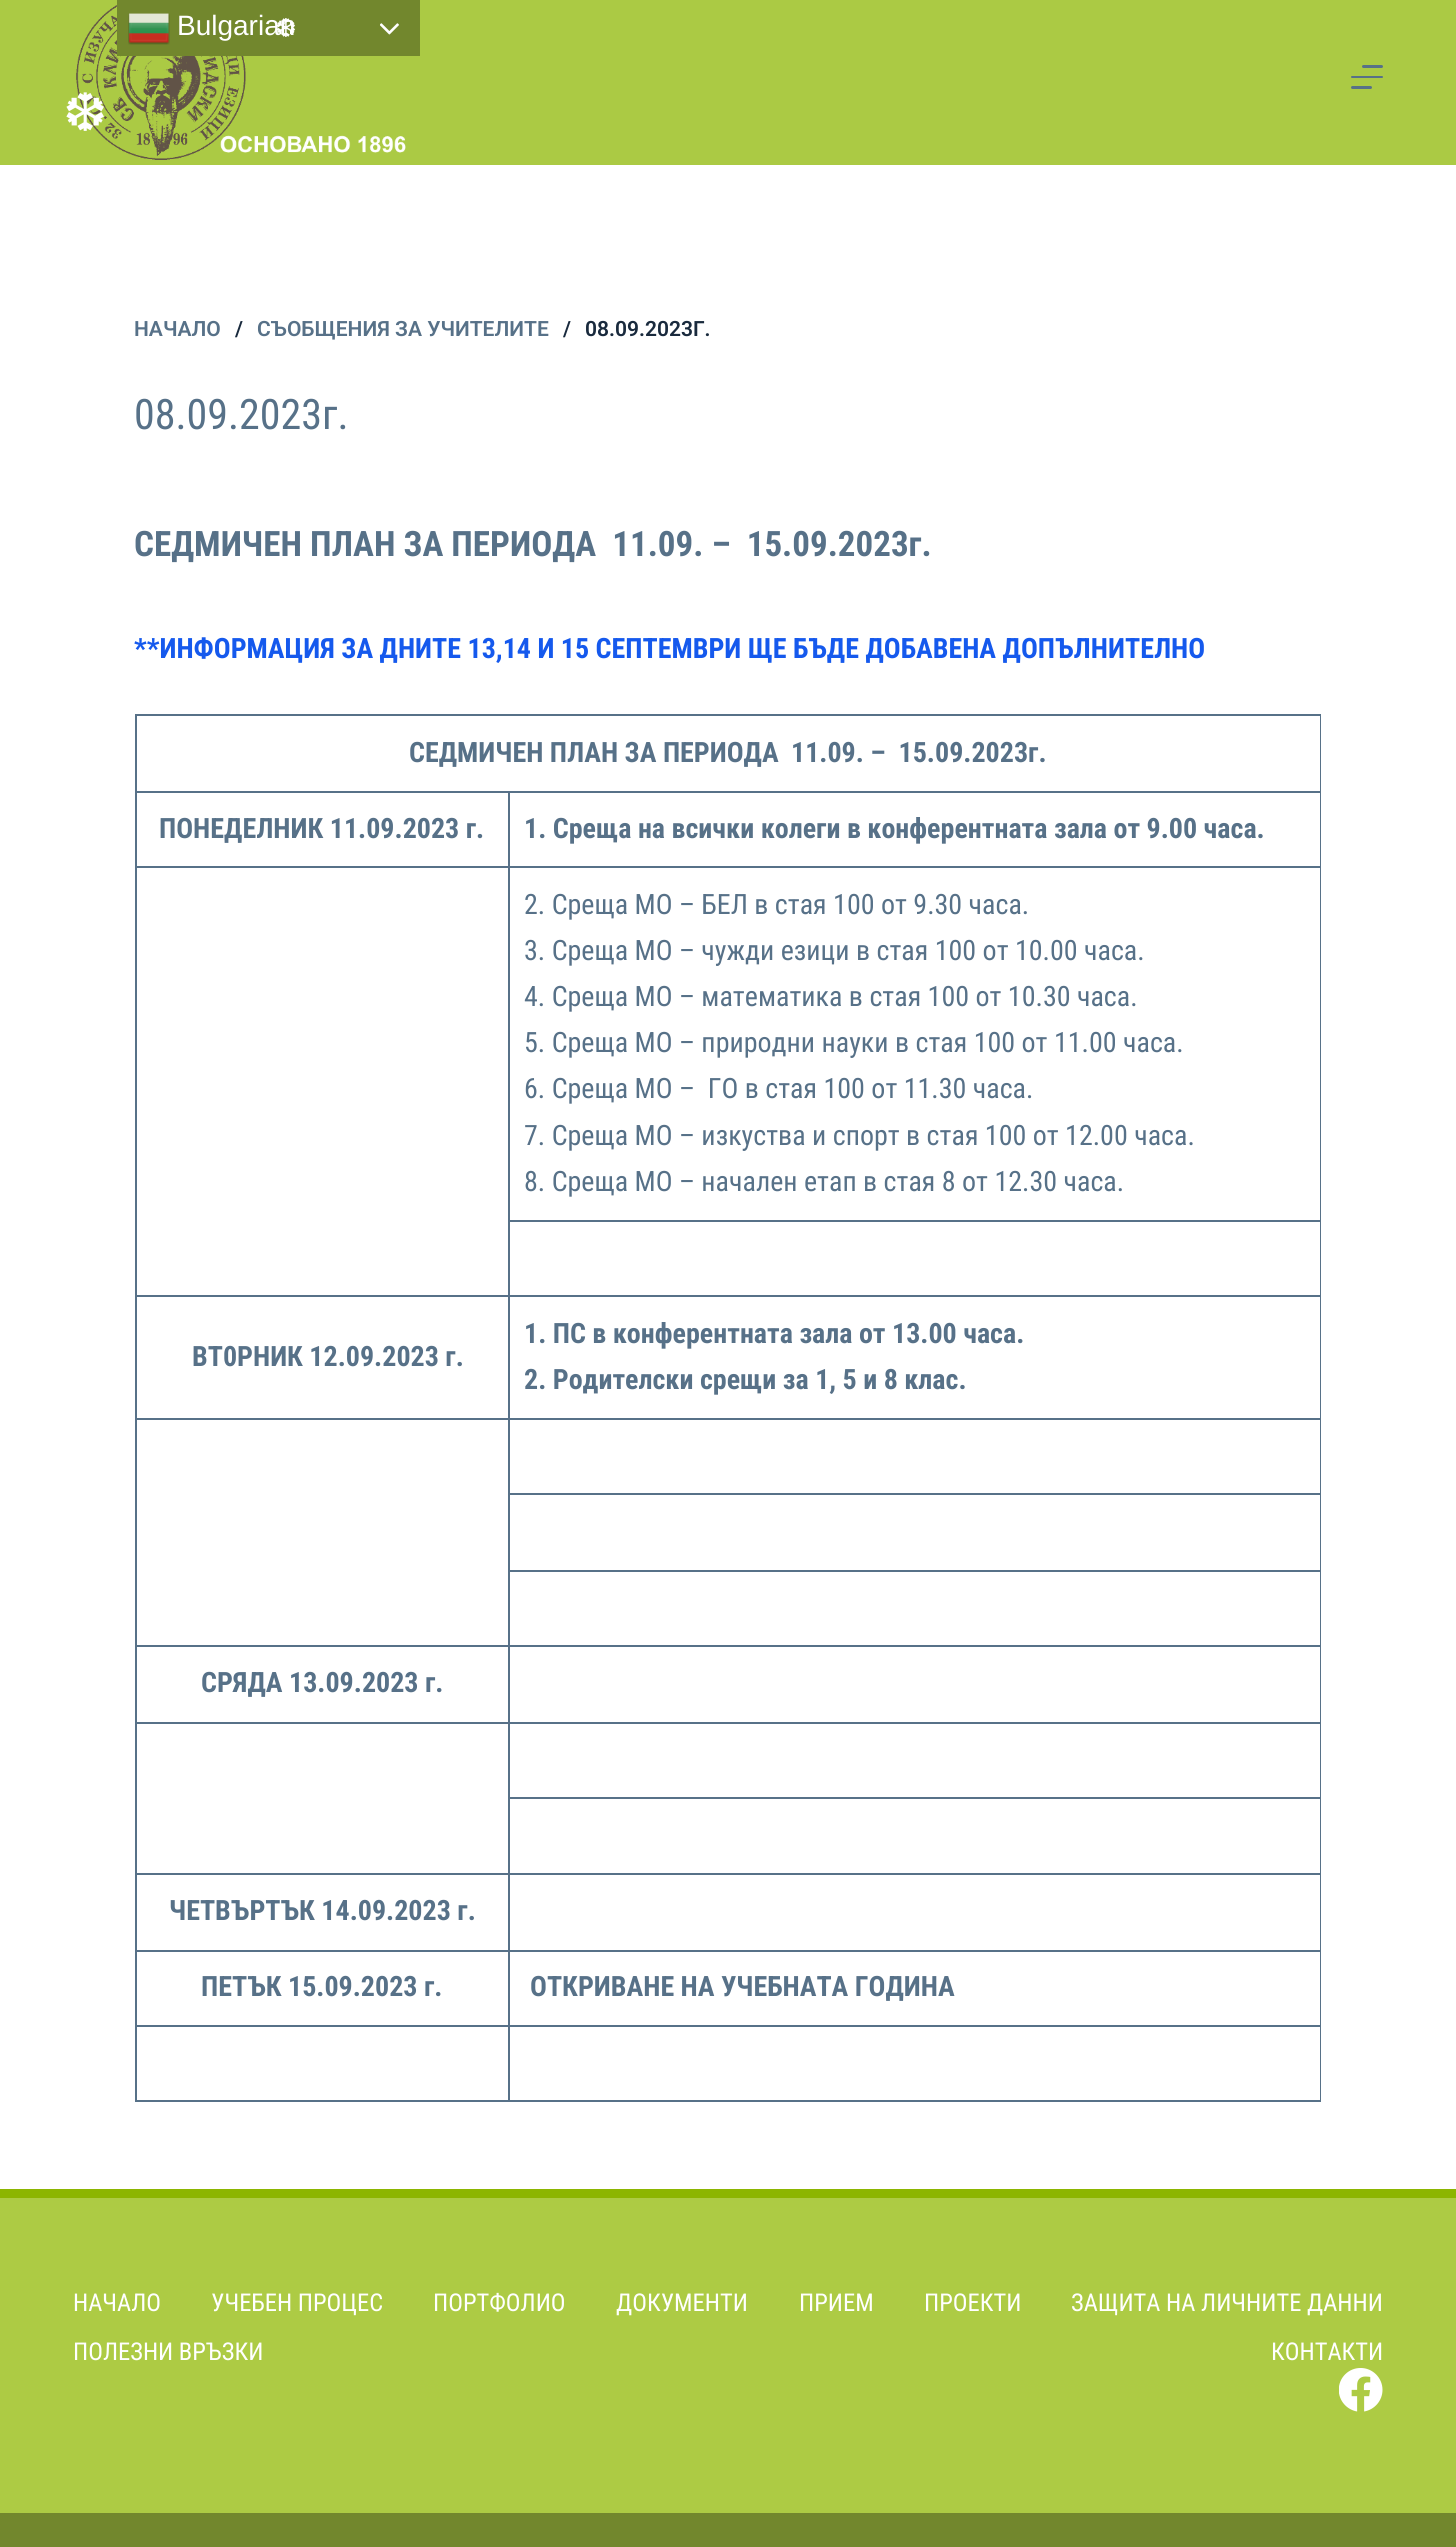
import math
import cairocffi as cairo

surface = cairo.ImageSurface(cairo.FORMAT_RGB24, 1456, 2547)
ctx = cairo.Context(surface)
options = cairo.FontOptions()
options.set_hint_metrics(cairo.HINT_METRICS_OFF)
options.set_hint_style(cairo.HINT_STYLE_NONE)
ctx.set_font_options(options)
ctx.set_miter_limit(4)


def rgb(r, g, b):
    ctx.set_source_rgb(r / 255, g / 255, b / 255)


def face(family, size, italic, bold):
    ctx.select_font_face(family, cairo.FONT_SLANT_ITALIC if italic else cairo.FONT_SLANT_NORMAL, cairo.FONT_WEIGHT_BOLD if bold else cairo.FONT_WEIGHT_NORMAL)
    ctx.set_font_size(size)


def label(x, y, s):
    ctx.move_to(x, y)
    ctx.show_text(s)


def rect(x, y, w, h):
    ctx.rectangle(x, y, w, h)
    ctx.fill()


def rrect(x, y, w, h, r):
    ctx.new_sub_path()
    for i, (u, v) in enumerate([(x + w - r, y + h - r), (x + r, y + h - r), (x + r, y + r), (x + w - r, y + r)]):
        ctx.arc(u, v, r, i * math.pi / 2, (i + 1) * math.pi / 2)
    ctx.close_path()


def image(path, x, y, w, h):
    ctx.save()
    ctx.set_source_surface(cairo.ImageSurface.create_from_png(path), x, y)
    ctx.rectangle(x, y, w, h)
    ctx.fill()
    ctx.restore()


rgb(255, 255, 255)
ctx.paint()
rgb(171, 202, 68)
rect(0, 0, 1456, 165)
image('image2.png', 76, 5, 330, 155)
rgb(114, 135, 45)
rect(117, 0, 303, 56)
image('image0.png', 128, 13, 42, 32)
face('Liberation Sans', 28, 0, 0)
rgb(255, 255, 255)
label(177, 35, 'Bulgarian')
image('image1.png', 380, 23, 19, 12)
face('DejaVu Sans', 26, 0, 0)
label(275, 37, '❆')
face('DejaVu Sans', 53, 0, 0)
label(63, 131, '❆')
rgb(87, 113, 136)
rrect(1362, 65, 21, 3, 1.5)
ctx.fill()
rrect(1351, 76, 32, 2, 1)
ctx.fill()
rrect(1351, 86, 21, 3, 1.5)
ctx.fill()
face('Roboto SemiBold', 21, 0, 0)
label(134, 336, 'НАЧАЛО')
rgb(25, 42, 61)
label(235, 336, '/')
rgb(87, 113, 136)
label(257, 336, 'СЪОБЩЕНИЯ ЗА УЧИТЕЛИТЕ')
rgb(25, 42, 61)
label(563, 336, '/')
label(585, 336, '08.09.2023Г.')
face('Roboto Condensed', 42, 0, 0)
rgb(87, 113, 136)
label(134, 429, '08.09.2023г.')
face('Roboto Condensed', 35, 0, 1)
label(134, 556, 'СЕДМИЧЕН ПЛАН ЗА ПЕРИОДА  11.09. –  15.09.2023г.')
face('Roboto Condensed', 28, 0, 1)
rgb(21, 89, 237)
label(134, 658, '**ИНФОРМАЦИЯ ЗА ДНИТЕ 13,14 И 15 СЕПТЕМВРИ ЩЕ БЪДЕ ДОБАВЕНА ДОПЪЛНИТЕЛНО')
rgb(87, 113, 136)
rect(135, 714, 1186, 2)
rect(508, 791, 813, 2)
rect(508, 866, 813, 2)
rect(508, 1220, 813, 2)
rect(508, 1295, 813, 2)
rect(508, 1418, 813, 2)
rect(508, 1493, 813, 2)
rect(508, 1570, 813, 2)
rect(508, 1645, 813, 2)
rect(508, 1722, 813, 2)
rect(508, 1797, 813, 2)
rect(508, 1873, 813, 2)
rect(508, 1950, 813, 2)
rect(508, 2025, 813, 2)
rect(1320, 2025, 1, 77)
rect(1320, 1950, 1, 77)
rect(1320, 1873, 1, 78)
rect(1320, 1797, 1, 77)
rect(1320, 1722, 1, 77)
rect(1320, 1645, 1, 79)
rect(1320, 1570, 1, 77)
rect(1320, 1493, 1, 79)
rect(1320, 1418, 1, 77)
rect(1320, 1295, 1, 124)
rect(1320, 1220, 1, 77)
rect(1320, 866, 1, 356)
rect(1320, 791, 1, 77)
rect(1320, 714, 1, 79)
rect(508, 2100, 813, 2)
rect(508, 2025, 2, 77)
rect(135, 2025, 374, 2)
rect(508, 1950, 2, 77)
rect(135, 1950, 374, 2)
rect(508, 1873, 2, 78)
rect(135, 1873, 374, 2)
rect(508, 1797, 2, 77)
rect(508, 1722, 2, 77)
rect(135, 1722, 374, 2)
rect(508, 1645, 2, 79)
rect(135, 1645, 374, 2)
rect(508, 1570, 2, 77)
rect(508, 1493, 2, 79)
rect(508, 1418, 2, 77)
rect(135, 1418, 374, 2)
rect(508, 1295, 2, 124)
rect(135, 1295, 374, 2)
rect(508, 1220, 2, 77)
rect(508, 866, 2, 356)
rect(135, 866, 374, 2)
rect(508, 791, 2, 77)
rect(135, 791, 374, 2)
rect(135, 2100, 374, 2)
rect(135, 2025, 2, 77)
rect(135, 1950, 2, 77)
rect(135, 1873, 2, 78)
rect(135, 1722, 2, 152)
rect(135, 1645, 2, 79)
rect(135, 1418, 2, 229)
rect(135, 1295, 2, 124)
rect(135, 866, 2, 431)
rect(135, 791, 2, 77)
rect(135, 714, 2, 79)
label(409, 762, 'СЕДМИЧЕН ПЛАН ЗА ПЕРИОДА')
label(791, 762, '11.09. –  15.09.2023г.')
label(159, 838, 'ПОНЕДЕЛНИК 11.09.2023 г.')
label(524, 838, '1. Среща на всички колеги в конферентната зала от 9.00 часа.')
face('Roboto Condensed', 28, 0, 0)
label(524, 914, '2. Среща МО – БЕЛ в стая 100 от 9.30 часа.')
label(524, 960, '3. Среща МО – чужди езици в стая 100 от 10.00 часа.')
label(524, 1006, '4. Среща МО – математика в стая 100 от 10.30 часа.')
label(524, 1052, '5. Среща МО – природни науки в стая 100 от 11.00 часа.')
label(524, 1098, '6. Среща МО –  ГО в стая 100 от 11.30 часа.')
label(524, 1145, '7. Среща МО – изкуства и спорт в стая 100 от 12.00 часа.')
label(524, 1191, '8. Среща МО – начален етап в стая 8 от 12.30 часа.')
face('Roboto Condensed', 28, 0, 1)
label(192, 1366, 'ВТ0РНИК 12.09.2023 г.')
label(524, 1343, '1. ПС в конферентната зала от 13.00 часа.')
label(524, 1389, '2. Родителски срещи за 1, 5 и 8 клас.')
label(201, 1692, 'СРЯДА 13.09.2023 г.')
label(169, 1920, 'ЧЕТВЪРТЪК 14.09.2023 г.')
label(201, 1996, 'ПЕТЪК 15.09.2023 г.')
label(530, 1996, 'ОТКРИВАНЕ НА УЧЕБНАТА ГОДИНА')
rgb(173, 203, 68)
rect(0, 2198, 1456, 315)
rgb(140, 181, 1)
rect(0, 2189, 1456, 9)
face('Roboto Condensed', 24.5, 0, 0)
rgb(255, 255, 255)
label(73, 2311, 'НАЧАЛО')
label(211, 2311, 'УЧЕБЕН ПРОЦЕС')
label(433, 2311, 'ПОРТФОЛИО')
label(616, 2311, 'ДОКУМЕНТИ')
label(799, 2311, 'ПРИЕМ')
label(924, 2311, 'ПРОЕКТИ')
label(1071, 2311, 'ЗАЩИТА НА ЛИЧНИТЕ ДАННИ')
label(73, 2360, 'ПОЛЕЗНИ ВРЪЗКИ')
label(1271, 2360, 'КОНТАКТИ')
image('image3.png', 1339, 2368, 44, 44)
rgb(114, 135, 45)
rect(0, 2513, 1456, 34)
surface.write_to_png('render.png')
